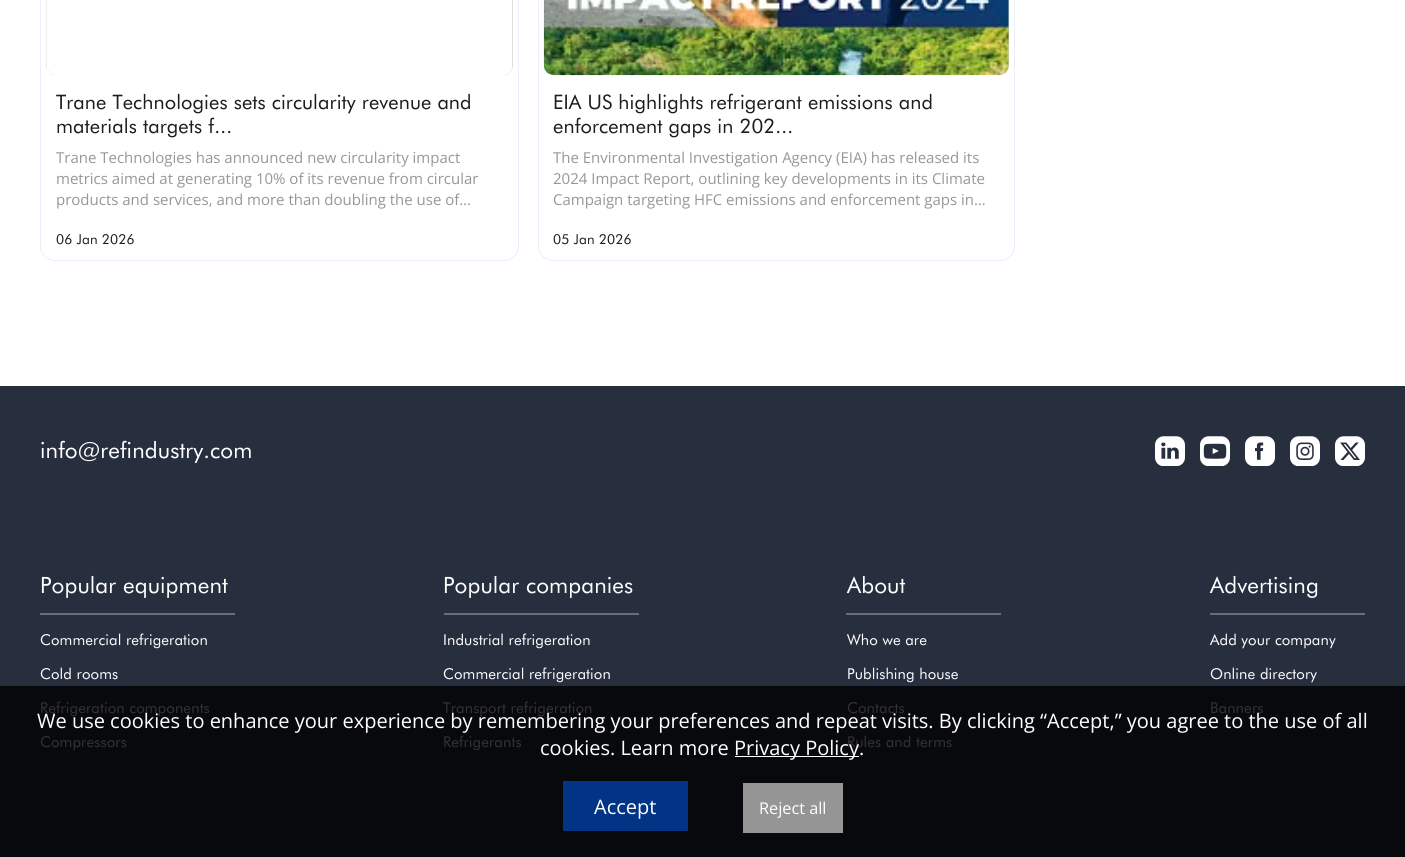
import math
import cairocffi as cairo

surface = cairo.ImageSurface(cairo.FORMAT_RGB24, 1405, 857)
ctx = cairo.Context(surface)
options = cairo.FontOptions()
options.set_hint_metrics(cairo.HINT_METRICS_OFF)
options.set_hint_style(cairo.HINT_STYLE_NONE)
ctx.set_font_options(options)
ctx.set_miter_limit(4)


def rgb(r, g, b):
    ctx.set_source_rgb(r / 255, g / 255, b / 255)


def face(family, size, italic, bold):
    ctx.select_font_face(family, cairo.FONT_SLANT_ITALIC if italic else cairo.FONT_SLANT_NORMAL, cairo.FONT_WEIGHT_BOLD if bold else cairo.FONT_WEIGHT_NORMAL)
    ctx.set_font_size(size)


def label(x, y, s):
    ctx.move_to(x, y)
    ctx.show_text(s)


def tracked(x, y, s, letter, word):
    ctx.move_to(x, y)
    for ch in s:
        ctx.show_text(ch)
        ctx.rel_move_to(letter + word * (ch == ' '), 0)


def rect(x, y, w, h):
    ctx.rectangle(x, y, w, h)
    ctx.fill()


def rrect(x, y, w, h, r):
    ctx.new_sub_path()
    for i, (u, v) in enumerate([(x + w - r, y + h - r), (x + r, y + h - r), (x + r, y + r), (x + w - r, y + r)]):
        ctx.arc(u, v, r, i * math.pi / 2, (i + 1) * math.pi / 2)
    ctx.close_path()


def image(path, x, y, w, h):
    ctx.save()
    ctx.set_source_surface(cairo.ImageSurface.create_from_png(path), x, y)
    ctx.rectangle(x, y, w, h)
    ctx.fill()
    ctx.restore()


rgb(255, 255, 255)
ctx.paint()
rrect(40.5, -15.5, 478, 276, 14.5)
rgb(233, 240, 253)
ctx.set_line_width(1)
ctx.stroke()
rgb(211, 211, 211)
rrect(46, -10, 467, 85, 10)
ctx.fill()
image('image0.png', 46, 0, 467, 75)
face('Futura', 20, 0, 0)
rgb(29, 29, 29)
tracked(56, 109, 'Trane Technologies sets circularity revenue and', 0.1, 0)
tracked(56, 133, 'materials targets f...', 0.1, 0)
face('Open Sans', 15, 0, 0)
rgb(151, 151, 151)
label(56, 163, 'Trane Technologies has announced new circularity impact')
label(56, 184, 'metrics aimed at generating 10% of its revenue from circular')
label(56, 205, 'products and services, and more than doubling the use of…')
face('Futura', 13.75, 0, 0)
rgb(29, 29, 29)
tracked(56, 244, '06 Jan 2026', 0.1, 0)
rrect(538.5, -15.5, 476, 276, 14.5)
rgb(233, 240, 253)
ctx.stroke()
rgb(211, 211, 211)
rrect(544, -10, 465, 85, 10)
ctx.fill()
image('image1.png', 543, 0, 466, 76)
face('Futura', 20, 0, 0)
rgb(29, 29, 29)
tracked(553, 109, 'EIA US highlights refrigerant emissions and', 0.1, 0)
tracked(553, 133, 'enforcement gaps in 202...', 0.1, 0)
face('Open Sans', 15, 0, 0)
rgb(151, 151, 151)
label(553, 163, 'The Environmental Investigation Agency (EIA) has released its')
label(553, 184, '2024 Impact Report, outlining key developments in its Climate')
label(553, 205, 'Campaign targeting HFC emissions and enforcement gaps in…')
face('Futura', 13.75, 0, 0)
rgb(29, 29, 29)
tracked(553, 244, '05 Jan 2026', 0.1, 0)
rgb(39, 47, 63)
rect(0, 386, 1405, 300)
rgb(8, 9, 13)
rect(0, 686, 1405, 171)
face('Futura', 22.5, 0, 0)
rgb(255, 255, 255)
tracked(40, 458, 'info@refindustry.com', 0.1, 0)
image('image2.png', 1155, 436, 30, 30)
image('image3.png', 1200, 436, 30, 30)
image('image4.png', 1245, 436, 30, 30)
image('image5.png', 1290, 436, 30, 30)
image('image6.png', 1335, 436, 30, 30)
tracked(40, 593, 'Popular equipment', 0.1, 0)
ctx.new_path()
ctx.move_to(40, 614)
ctx.line_to(235, 614)
rgb(147, 151, 159)
ctx.set_line_width(1.2)
ctx.stroke()
face('Futura', 15, 0, 0)
rgb(255, 255, 255)
tracked(40, 645, 'Commercial refrigeration', 0.1, 0)
tracked(40, 679, 'Cold rooms', 0.1, 0)
rgb(51, 51, 51)
tracked(40, 713, 'Refrigeration components', 0.1, 0)
tracked(40, 747, 'Compressors', 0.1, 0)
face('Futura', 22.5, 0, 0)
rgb(255, 255, 255)
tracked(443, 593, 'Popular companies', 0.1, 0)
ctx.new_path()
ctx.move_to(444, 614)
ctx.line_to(639, 614)
rgb(147, 151, 159)
ctx.stroke()
face('Futura', 15, 0, 0)
rgb(255, 255, 255)
tracked(443, 645, 'Industrial refrigeration', 0.1, 0)
tracked(443, 679, 'Commercial refrigeration', 0.1, 0)
rgb(51, 51, 51)
tracked(443, 713, 'Transport refrigeration', 0.1, 0)
tracked(443, 747, 'Refrigerants', 0.1, 0)
face('Futura', 22.5, 0, 0)
rgb(255, 255, 255)
tracked(847, 593, 'About', 0.1, 0)
ctx.new_path()
ctx.move_to(846, 614)
ctx.line_to(1001, 614)
rgb(147, 151, 159)
ctx.stroke()
face('Futura', 15, 0, 0)
rgb(255, 255, 255)
tracked(847, 645, 'Who we are', 0.1, 0)
tracked(847, 679, 'Publishing house', 0.1, 0)
rgb(51, 51, 51)
tracked(847, 713, 'Contacts', 0.1, 0)
tracked(847, 747, 'Rules and terms', 0.1, 0)
face('Futura', 22.5, 0, 0)
rgb(255, 255, 255)
tracked(1210, 593, 'Advertising', 0.1, 0)
ctx.new_path()
ctx.move_to(1210, 614)
ctx.line_to(1365, 614)
rgb(147, 151, 159)
ctx.stroke()
face('Futura', 15, 0, 0)
rgb(255, 255, 255)
tracked(1210, 645, 'Add your company', 0.1, 0)
tracked(1210, 679, 'Online directory', 0.1, 0)
rgb(51, 51, 51)
tracked(1210, 713, 'Banners', 0.1, 0)
face('Open Sans', 20, 0, 0)
rgb(255, 255, 255)
label(37, 728, 'We use cookies to enhance your experience by remembering your preferences and repeat visits. By clicking “Accept,” you agree to the use of all')
label(540, 755, 'cookies. Learn more')
rect(735, 756, 124, 1)
label(734, 755, 'Privacy Policy.')
rgb(1, 52, 133)
rect(563, 781, 125, 50)
rgb(255, 255, 255)
label(594, 814, 'Accept')
rgb(149, 149, 149)
rect(743, 783, 100, 50)
face('Open Sans', 16.25, 0, 0)
rgb(255, 255, 255)
label(759, 814, 'Reject all')
surface.write_to_png('render.png')
